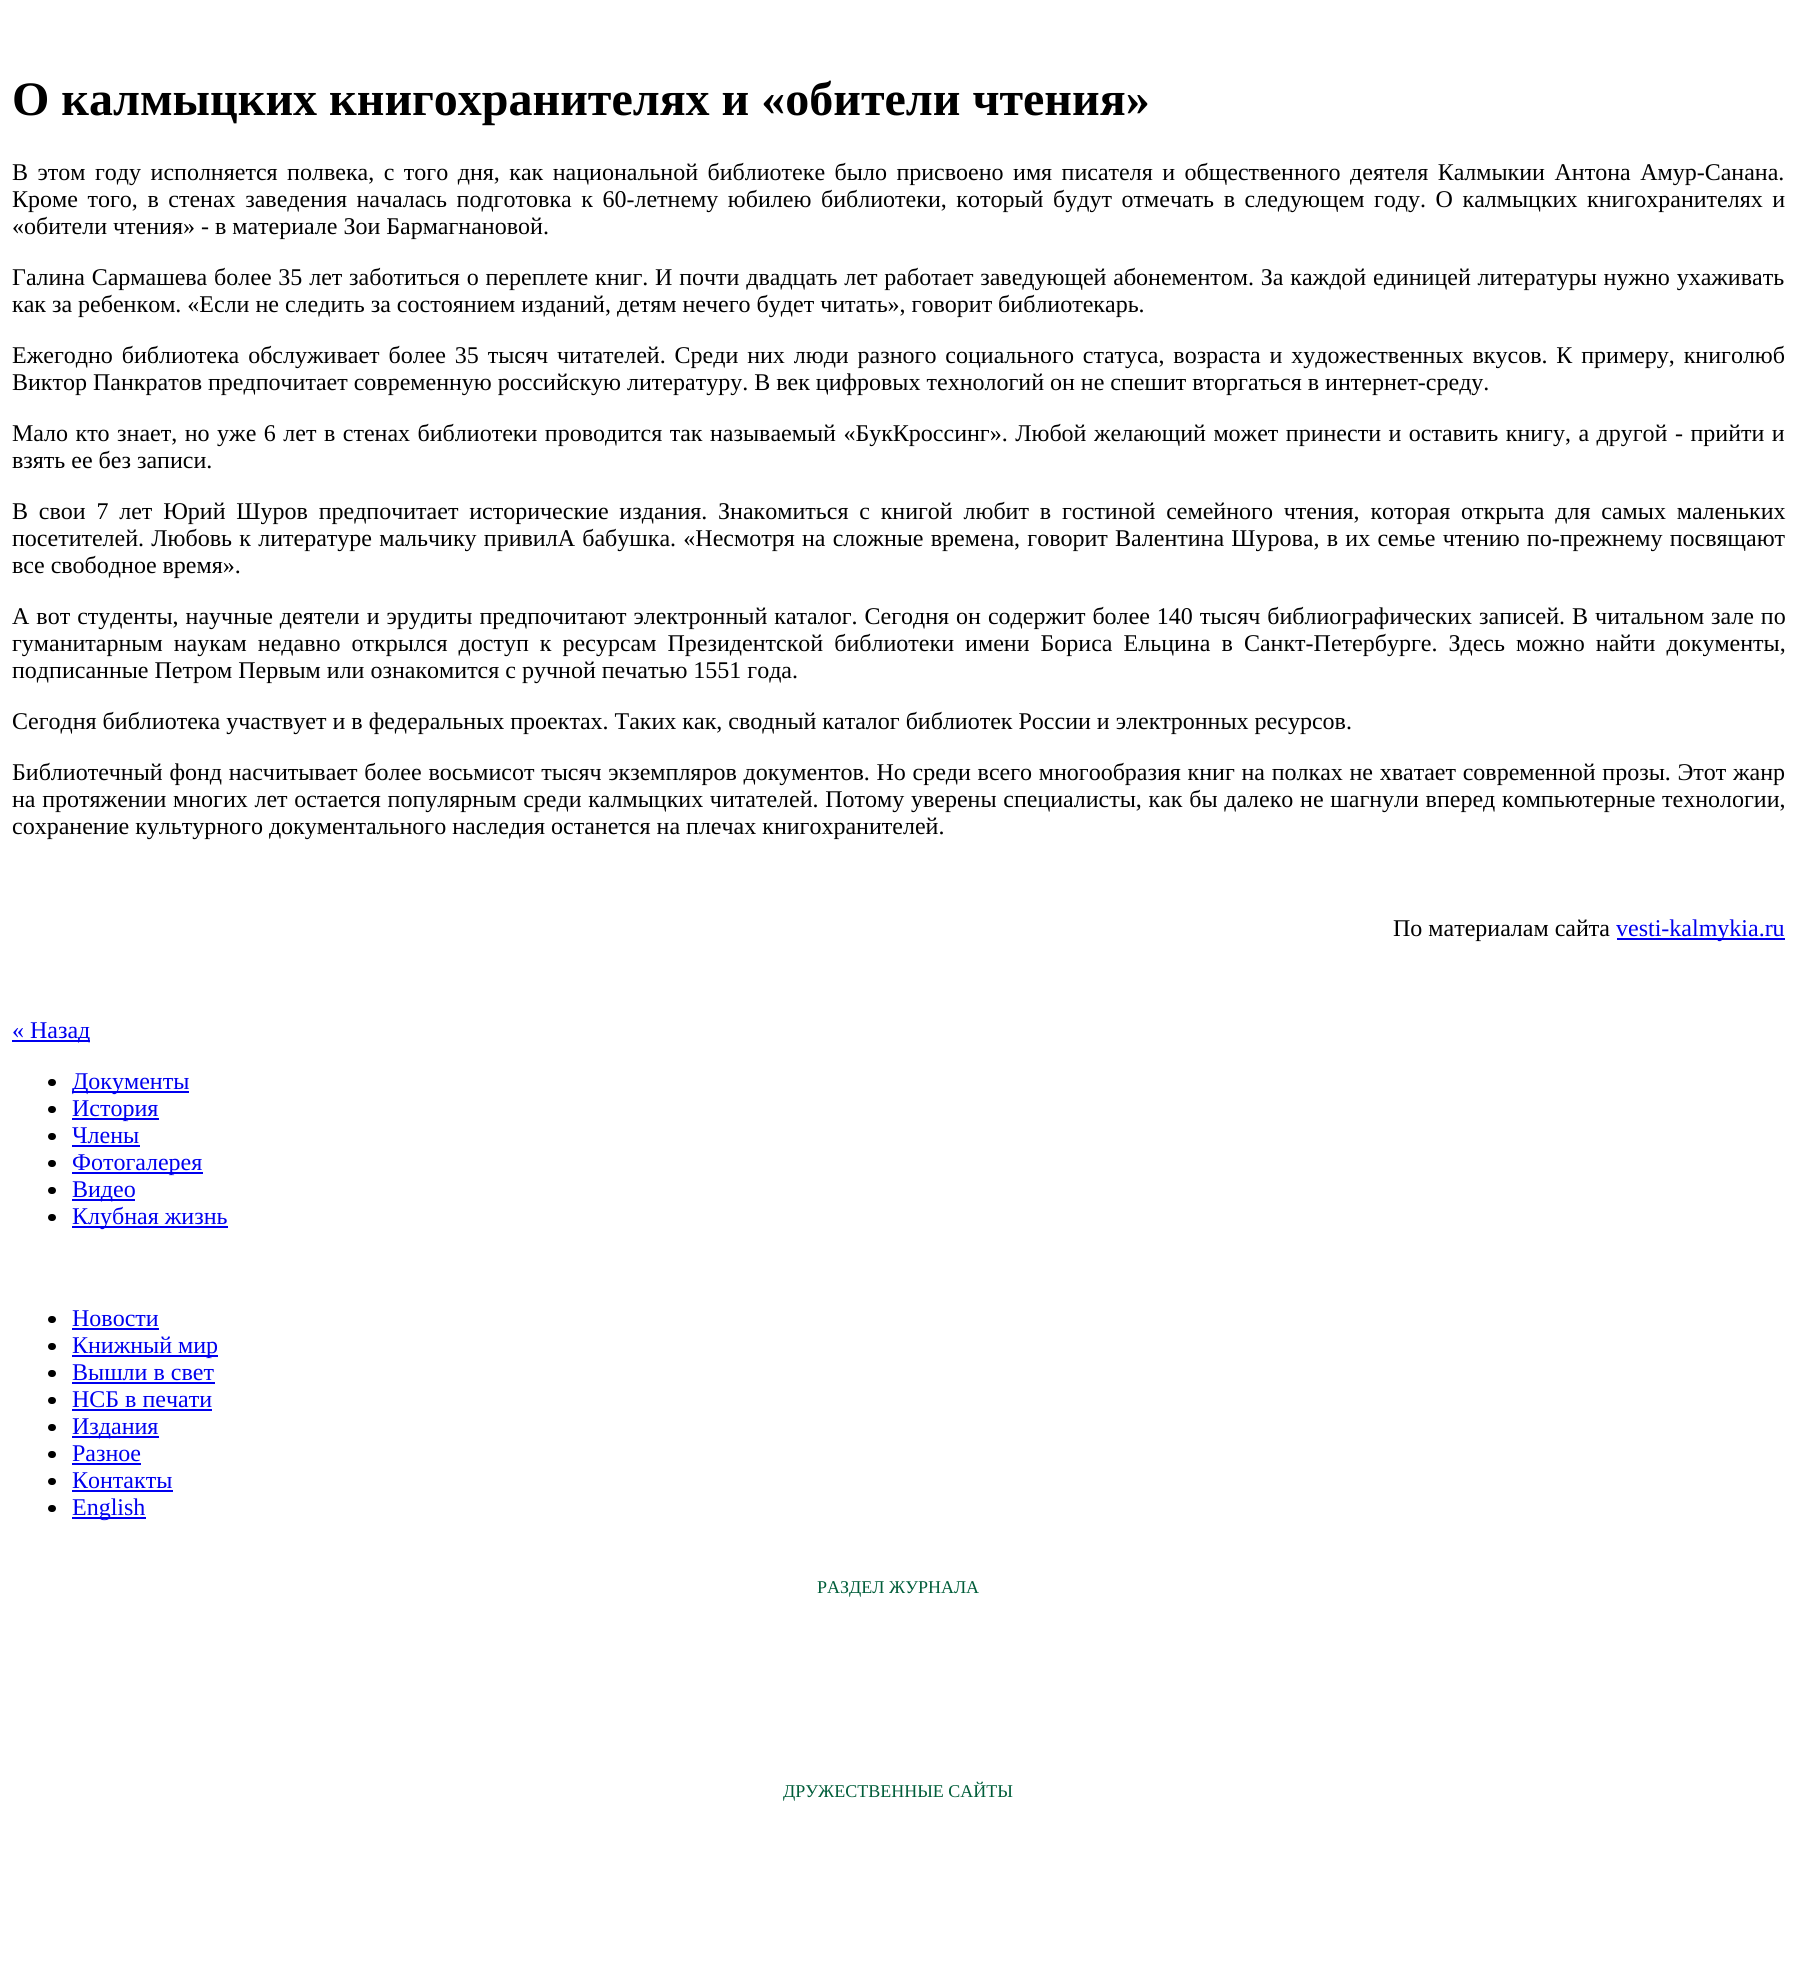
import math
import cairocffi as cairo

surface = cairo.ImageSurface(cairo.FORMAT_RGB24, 1796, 1976)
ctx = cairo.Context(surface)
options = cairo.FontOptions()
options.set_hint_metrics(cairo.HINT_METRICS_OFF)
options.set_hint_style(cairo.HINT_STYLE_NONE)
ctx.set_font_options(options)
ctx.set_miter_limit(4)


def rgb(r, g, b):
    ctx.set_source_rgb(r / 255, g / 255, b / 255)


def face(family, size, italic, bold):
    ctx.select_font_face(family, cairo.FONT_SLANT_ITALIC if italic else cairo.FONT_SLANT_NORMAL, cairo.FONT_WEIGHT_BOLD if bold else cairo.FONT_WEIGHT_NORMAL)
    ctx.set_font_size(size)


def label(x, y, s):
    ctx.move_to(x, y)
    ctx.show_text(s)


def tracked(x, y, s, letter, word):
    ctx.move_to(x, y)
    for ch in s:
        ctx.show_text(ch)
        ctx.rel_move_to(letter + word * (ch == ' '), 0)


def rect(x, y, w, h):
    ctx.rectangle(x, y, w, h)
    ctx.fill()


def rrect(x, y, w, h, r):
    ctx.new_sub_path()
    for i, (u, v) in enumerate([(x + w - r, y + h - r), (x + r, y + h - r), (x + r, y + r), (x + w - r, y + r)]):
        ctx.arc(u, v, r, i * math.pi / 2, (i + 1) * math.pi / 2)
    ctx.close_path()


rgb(255, 255, 255)
ctx.paint()
face('Liberation Serif', 48, 0, 1)
rgb(0, 0, 0)
label(12, 115, 'О калмыцких книгохранителях и «обители чтения»')
face('Liberation Serif', 24, 0, 0)
tracked(12, 180, 'В этом году исполняется полвека, с того дня, как национальной библиотеке было присвоено имя писателя и общественного деятеля Калмыкии Антона Амур-Санана.', 0, 3.5)
tracked(12, 207, 'Кроме того, в стенах заведения началась подготовка к 60-летнему юбилею библиотеки, который будут отмечать в следующем году. О калмыцких книгохранителях и', 0, 3.6)
label(12, 234, '«обители чтения» - в материале Зои Бармагнановой.')
tracked(12, 285, 'Галина Сармашева более 35 лет заботиться о переплете книг. И почти двадцать лет работает заведующей абонементом. За каждой единицей литературы нужно ухаживать', 0, 0.8)
label(12, 312, 'как за ребенком. «Если не следить за состоянием изданий, детям нечего будет читать», говорит библиотекарь.')
tracked(12, 363, 'Ежегодно библиотека обслуживает более 35 тысяч читателей. Среди них люди разного социального статуса, возраста и художественных вкусов. К примеру, книголюб', 0, 2.9)
label(12, 390, 'Виктор Панкратов предпочитает современную российскую литературу. В век цифровых технологий он не спешит вторгаться в интернет-среду.')
tracked(12, 441, 'Мало кто знает, но уже 6 лет в стенах библиотеки проводится так называемый «БукКроссинг». Любой желающий может принести и оставить книгу, а другой - прийти и', 0, 1.5)
label(12, 468, 'взять ее без записи.')
tracked(12, 519, 'В свои 7 лет Юрий Шуров предпочитает исторические издания. Знакомиться с книгой любит в гостиной семейного чтения, которая открыта для самых маленьких', 0, 4.8)
tracked(12, 546, 'посетителей. Любовь к литературе мальчику привилА бабушка. «Несмотря на сложные времена, говорит Валентина Шурова, в их семье чтению по-прежнему посвящают', 0, 1.25)
label(12, 573, 'все свободное время».')
tracked(12, 624, 'А вот студенты, научные деятели и эрудиты предпочитают электронный каталог. Сегодня он содержит более 140 тысяч библиографических записей. В читальном зале по', 0, 1)
tracked(12, 651, 'гуманитарным наукам недавно открылся доступ к ресурсам Президентской библиотеки имени Бориса Ельцина в Санкт-Петербурге. Здесь можно найти документы,', 0, 5.1)
label(12, 678, 'подписанные Петром Первым или ознакомится с ручной печатью 1551 года.')
label(12, 729, 'Сегодня библиотека участвует и в федеральных проектах. Таких как, сводный каталог библиотек России и электронных ресурсов.')
tracked(12, 780, 'Библиотечный фонд насчитывает более восьмисот тысяч экземпляров документов. Но среди всего многообразия книг на полках не хватает современной прозы. Этот жанр', 0, 0.7)
tracked(12, 807, 'на протяжении многих лет остается популярным среди калмыцких читателей. Потому уверены специалисты, как бы далеко не шагнули вперед компьютерные технологии,', 0, 0.7)
label(12, 834, 'сохранение культурного документального наследия останется на плечах книгохранителей.')
label(1393, 936, 'По материалам сайта')
rgb(0, 0, 238)
rect(1617, 938, 168, 2)
label(1616, 936, 'vesti-kalmykia.ru')
rect(12, 1040, 78, 2)
label(12, 1038, '« Назад')
rgb(0, 0, 0)
rrect(48, 1079, 8, 7, 3.5)
ctx.fill()
rgb(0, 0, 238)
rect(72, 1091, 117, 2)
label(72, 1089, 'Документы')
rgb(0, 0, 0)
rrect(48, 1106, 8, 7, 3.5)
ctx.fill()
rgb(0, 0, 238)
rect(72, 1118, 87, 2)
label(72, 1116, 'История')
rgb(0, 0, 0)
rrect(48, 1133, 8, 7, 3.5)
ctx.fill()
rgb(0, 0, 238)
label(72, 1143, 'Члены')
rect(72, 1145, 68, 2)
rgb(0, 0, 0)
rrect(48, 1160, 8, 7, 3.5)
ctx.fill()
rgb(0, 0, 238)
rect(72, 1172, 131, 2)
label(72, 1170, 'Фотогалерея')
rgb(0, 0, 0)
rrect(48, 1187, 8, 7, 3.5)
ctx.fill()
rgb(0, 0, 238)
rect(72, 1199, 63, 2)
label(72, 1197, 'Видео')
rgb(0, 0, 0)
rrect(48, 1214, 8, 7, 3.5)
ctx.fill()
rgb(0, 0, 238)
rect(72, 1226, 156, 2)
label(72, 1224, 'Клубная жизнь')
rgb(0, 0, 0)
rrect(48, 1316, 8, 7, 3.5)
ctx.fill()
rgb(0, 0, 238)
label(72, 1326, 'Новости')
rect(72, 1328, 87, 2)
rgb(0, 0, 0)
rrect(48, 1343, 8, 7, 3.5)
ctx.fill()
rgb(0, 0, 238)
rect(72, 1355, 146, 2)
label(72, 1353, 'Книжный мир')
rgb(0, 0, 0)
rrect(48, 1370, 8, 7, 3.5)
ctx.fill()
rgb(0, 0, 238)
label(72, 1380, 'Вышли в свет')
rect(72, 1382, 143, 2)
rgb(0, 0, 0)
rrect(48, 1397, 8, 7, 3.5)
ctx.fill()
rgb(0, 0, 238)
label(72, 1407, 'НСБ в печати')
rect(72, 1409, 140, 2)
rgb(0, 0, 0)
rrect(48, 1424, 8, 7, 3.5)
ctx.fill()
rgb(0, 0, 238)
rect(72, 1436, 87, 2)
label(72, 1434, 'Издания')
rgb(0, 0, 0)
rrect(48, 1451, 8, 7, 3.5)
ctx.fill()
rgb(0, 0, 238)
label(72, 1461, 'Разное')
rect(72, 1463, 69, 2)
rgb(0, 0, 0)
rrect(48, 1478, 8, 7, 3.5)
ctx.fill()
rgb(0, 0, 238)
label(72, 1488, 'Контакты')
rect(72, 1490, 101, 2)
rgb(0, 0, 0)
rrect(48, 1505, 8, 7, 3.5)
ctx.fill()
rgb(0, 0, 238)
rect(72, 1517, 74, 2)
label(72, 1515, 'English')
face('Liberation Serif', 18, 0, 0)
rgb(0, 93, 57)
label(817, 1593, 'РАЗДЕЛ ЖУРНАЛА')
label(783, 1797, 'ДРУЖЕСТВЕННЫЕ САЙТЫ')
surface.write_to_png('render.png')
